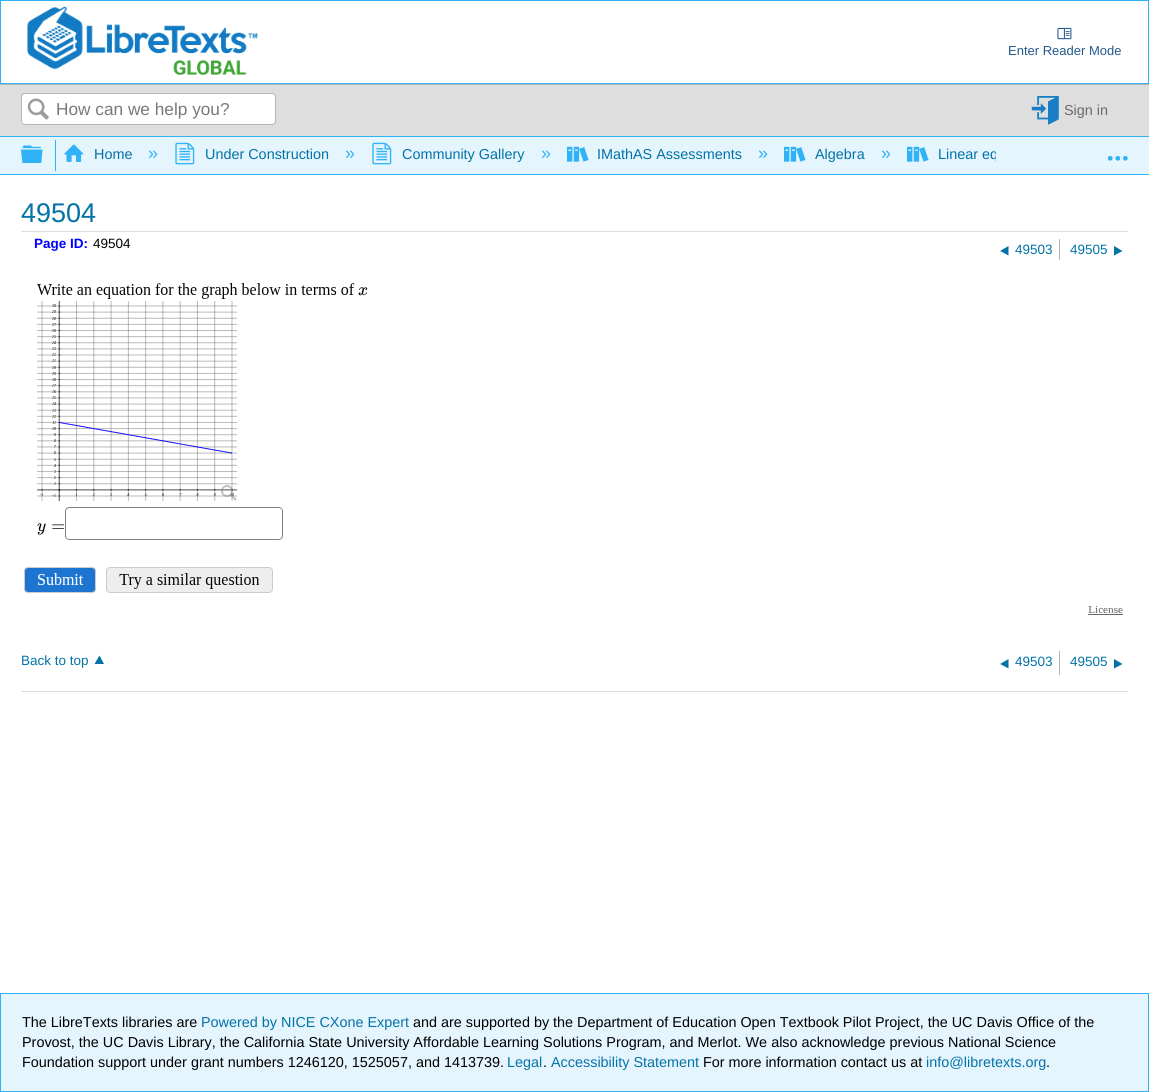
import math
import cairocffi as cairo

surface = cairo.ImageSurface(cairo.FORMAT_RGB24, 1149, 1092)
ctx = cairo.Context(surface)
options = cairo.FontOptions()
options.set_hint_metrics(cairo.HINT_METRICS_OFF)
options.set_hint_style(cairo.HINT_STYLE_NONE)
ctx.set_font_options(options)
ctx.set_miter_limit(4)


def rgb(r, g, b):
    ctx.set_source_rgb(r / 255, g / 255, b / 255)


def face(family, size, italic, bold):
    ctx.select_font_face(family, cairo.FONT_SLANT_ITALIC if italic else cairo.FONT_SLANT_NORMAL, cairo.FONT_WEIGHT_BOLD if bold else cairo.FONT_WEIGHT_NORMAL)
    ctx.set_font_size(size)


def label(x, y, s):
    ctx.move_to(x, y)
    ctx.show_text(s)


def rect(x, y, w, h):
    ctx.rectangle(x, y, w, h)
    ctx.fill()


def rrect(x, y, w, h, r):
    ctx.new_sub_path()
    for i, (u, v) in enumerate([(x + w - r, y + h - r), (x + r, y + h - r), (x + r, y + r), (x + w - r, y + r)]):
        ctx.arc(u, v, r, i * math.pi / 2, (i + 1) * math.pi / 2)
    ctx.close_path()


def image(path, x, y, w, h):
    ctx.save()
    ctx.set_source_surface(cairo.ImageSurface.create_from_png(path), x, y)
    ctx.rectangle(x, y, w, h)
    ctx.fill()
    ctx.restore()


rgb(255, 255, 255)
ctx.paint()
ctx.rectangle(0.5, 0.5, 1148, 83)
rgb(48, 179, 246)
ctx.set_line_width(1)
ctx.stroke()
image('image0.png', 27, 6, 231, 69)
image('image1.png', 1057, 27, 15, 13)
face('Liberation Sans', 13, 0, 0)
rgb(35, 90, 139)
label(1008, 55, 'Enter Reader Mode')
rgb(222, 222, 222)
rect(0, 85, 1149, 51)
rgb(182, 182, 182)
rect(0, 84, 1149, 1)
rgb(255, 255, 255)
rrect(21.5, 93.5, 254, 31, 3.5)
ctx.fill_preserve()
rgb(182, 182, 182)
ctx.stroke()
image('image2.png', 27, 98, 22, 22)
face('Liberation Sans', 17.25, 0, 0)
rgb(121, 121, 121)
label(56, 115, 'How can we help you?')
image('image3.png', 1031, 96, 28, 29)
face('Liberation Sans', 14.4, 0, 0)
rgb(107, 107, 107)
label(1064, 115, 'Sign in')
rgb(229, 245, 254)
rect(0, 137, 1149, 37)
rgb(48, 179, 246)
rect(0, 136, 1149, 1)
rect(0, 174, 1149, 1)
image('image4.png', 21, 145, 22, 18)
rect(55, 140, 1, 31)
image('image5.png', 64, 144, 20, 18)
rgb(3, 114, 166)
label(94, 159, 'Home')
face('Liberation Sans', 18, 0, 0)
rgb(48, 179, 246)
label(148, 159, '»')
image('image6.png', 175, 142, 20, 23)
face('Liberation Sans', 14.4, 0, 0)
rgb(3, 114, 166)
label(205, 159, 'Under Construction')
face('Liberation Sans', 18, 0, 0)
rgb(48, 179, 246)
label(345, 159, '»')
image('image6.png', 372, 142, 20, 23)
face('Liberation Sans', 14.4, 0, 0)
rgb(3, 114, 166)
label(402, 159, 'Community Gallery')
face('Liberation Sans', 18, 0, 0)
rgb(48, 179, 246)
label(541, 159, '»')
image('image7.png', 567, 146, 22, 16)
face('Liberation Sans', 14.4, 0, 0)
rgb(3, 114, 166)
label(597, 159, 'IMathAS Assessments')
face('Liberation Sans', 18, 0, 0)
rgb(48, 179, 246)
label(758, 159, '»')
image('image7.png', 784, 146, 22, 16)
face('Liberation Sans', 14.4, 0, 0)
rgb(3, 114, 166)
label(815, 159, 'Algebra')
face('Liberation Sans', 18, 0, 0)
rgb(48, 179, 246)
label(881, 159, '»')
image('image7.png', 907, 146, 22, 16)
ctx.save()
ctx.rectangle(56, 140, 940, 31)
ctx.clip()
face('Liberation Sans', 14.4, 0, 0)
rgb(3, 114, 166)
label(938, 159, 'Linear eq')
ctx.restore()
image('image8.png', 1107, 155, 21, 6)
rgb(221, 221, 221)
rect(21, 231, 1107, 1)
face('Liberation Sans', 27, 0, 0)
rgb(3, 114, 166)
label(21, 222, '49504')
face('Liberation Sans', 13.5, 0, 1)
rgb(0, 0, 255)
label(34, 248, 'Page ID:')
face('Liberation Sans', 13.5, 0, 0)
rgb(0, 0, 0)
label(93, 248, '49504')
rgb(180, 180, 180)
rect(1059, 239, 1, 21)
rgb(3, 114, 166)
ctx.new_path()
ctx.move_to(1008.5, 246)
ctx.line_to(1008.5, 255.5)
ctx.line_to(1000, 251)
ctx.close_path()
ctx.fill()
label(1015, 254, '49503')
label(1070, 254, '49505')
ctx.new_path()
ctx.move_to(1114, 246)
ctx.line_to(1114, 255.5)
ctx.line_to(1122.5, 251)
ctx.close_path()
ctx.fill()
image('image9.png', 24, 283, 1099, 332)
rgb(221, 221, 221)
rect(21, 691, 1107, 1)
rgb(3, 114, 166)
label(21, 665, 'Back to top')
ctx.new_path()
ctx.move_to(94.5, 664)
ctx.line_to(104, 664)
ctx.line_to(99.5, 655.5)
ctx.close_path()
ctx.fill()
rgb(180, 180, 180)
rect(1059, 651, 1, 24)
rgb(3, 114, 166)
ctx.new_path()
ctx.move_to(1008.5, 659)
ctx.line_to(1008.5, 668.5)
ctx.line_to(1000, 664)
ctx.close_path()
ctx.fill()
label(1015, 666, '49503')
label(1070, 666, '49505')
ctx.new_path()
ctx.move_to(1114, 659)
ctx.line_to(1114, 668.5)
ctx.line_to(1122.5, 664)
ctx.close_path()
ctx.fill()
rgb(229, 245, 254)
ctx.rectangle(0.5, 993.5, 1148, 98)
ctx.fill_preserve()
rgb(48, 179, 246)
ctx.stroke()
face('Liberation Sans', 14.4, 0, 0)
rgb(0, 0, 0)
label(22, 1027, 'The LibreTexts libraries are')
rgb(3, 114, 166)
label(201, 1027, 'Powered by NICE CXone Expert')
rgb(0, 0, 0)
label(413, 1027, 'and are supported by the Department of Education Open Textbook Pilot Project, the UC Davis Office of the')
label(22, 1047, 'Provost, the UC Davis Library, the California State University Affordable Learning Solutions Program, and Merlot. We also acknowledge previous National Science')
label(22, 1067, 'Foundation support under grant numbers 1246120, 1525057, and 1413739.')
rgb(3, 114, 166)
label(507, 1067, 'Legal')
rgb(0, 0, 0)
label(543, 1067, '.')
rgb(3, 114, 166)
label(551, 1067, 'Accessibility Statement')
rgb(0, 0, 0)
label(703, 1067, 'For more information contact us at')
rgb(3, 114, 166)
label(926, 1067, 'info@libretexts.org')
rgb(0, 0, 0)
label(1046, 1067, '.')
surface.write_to_png('render.png')
